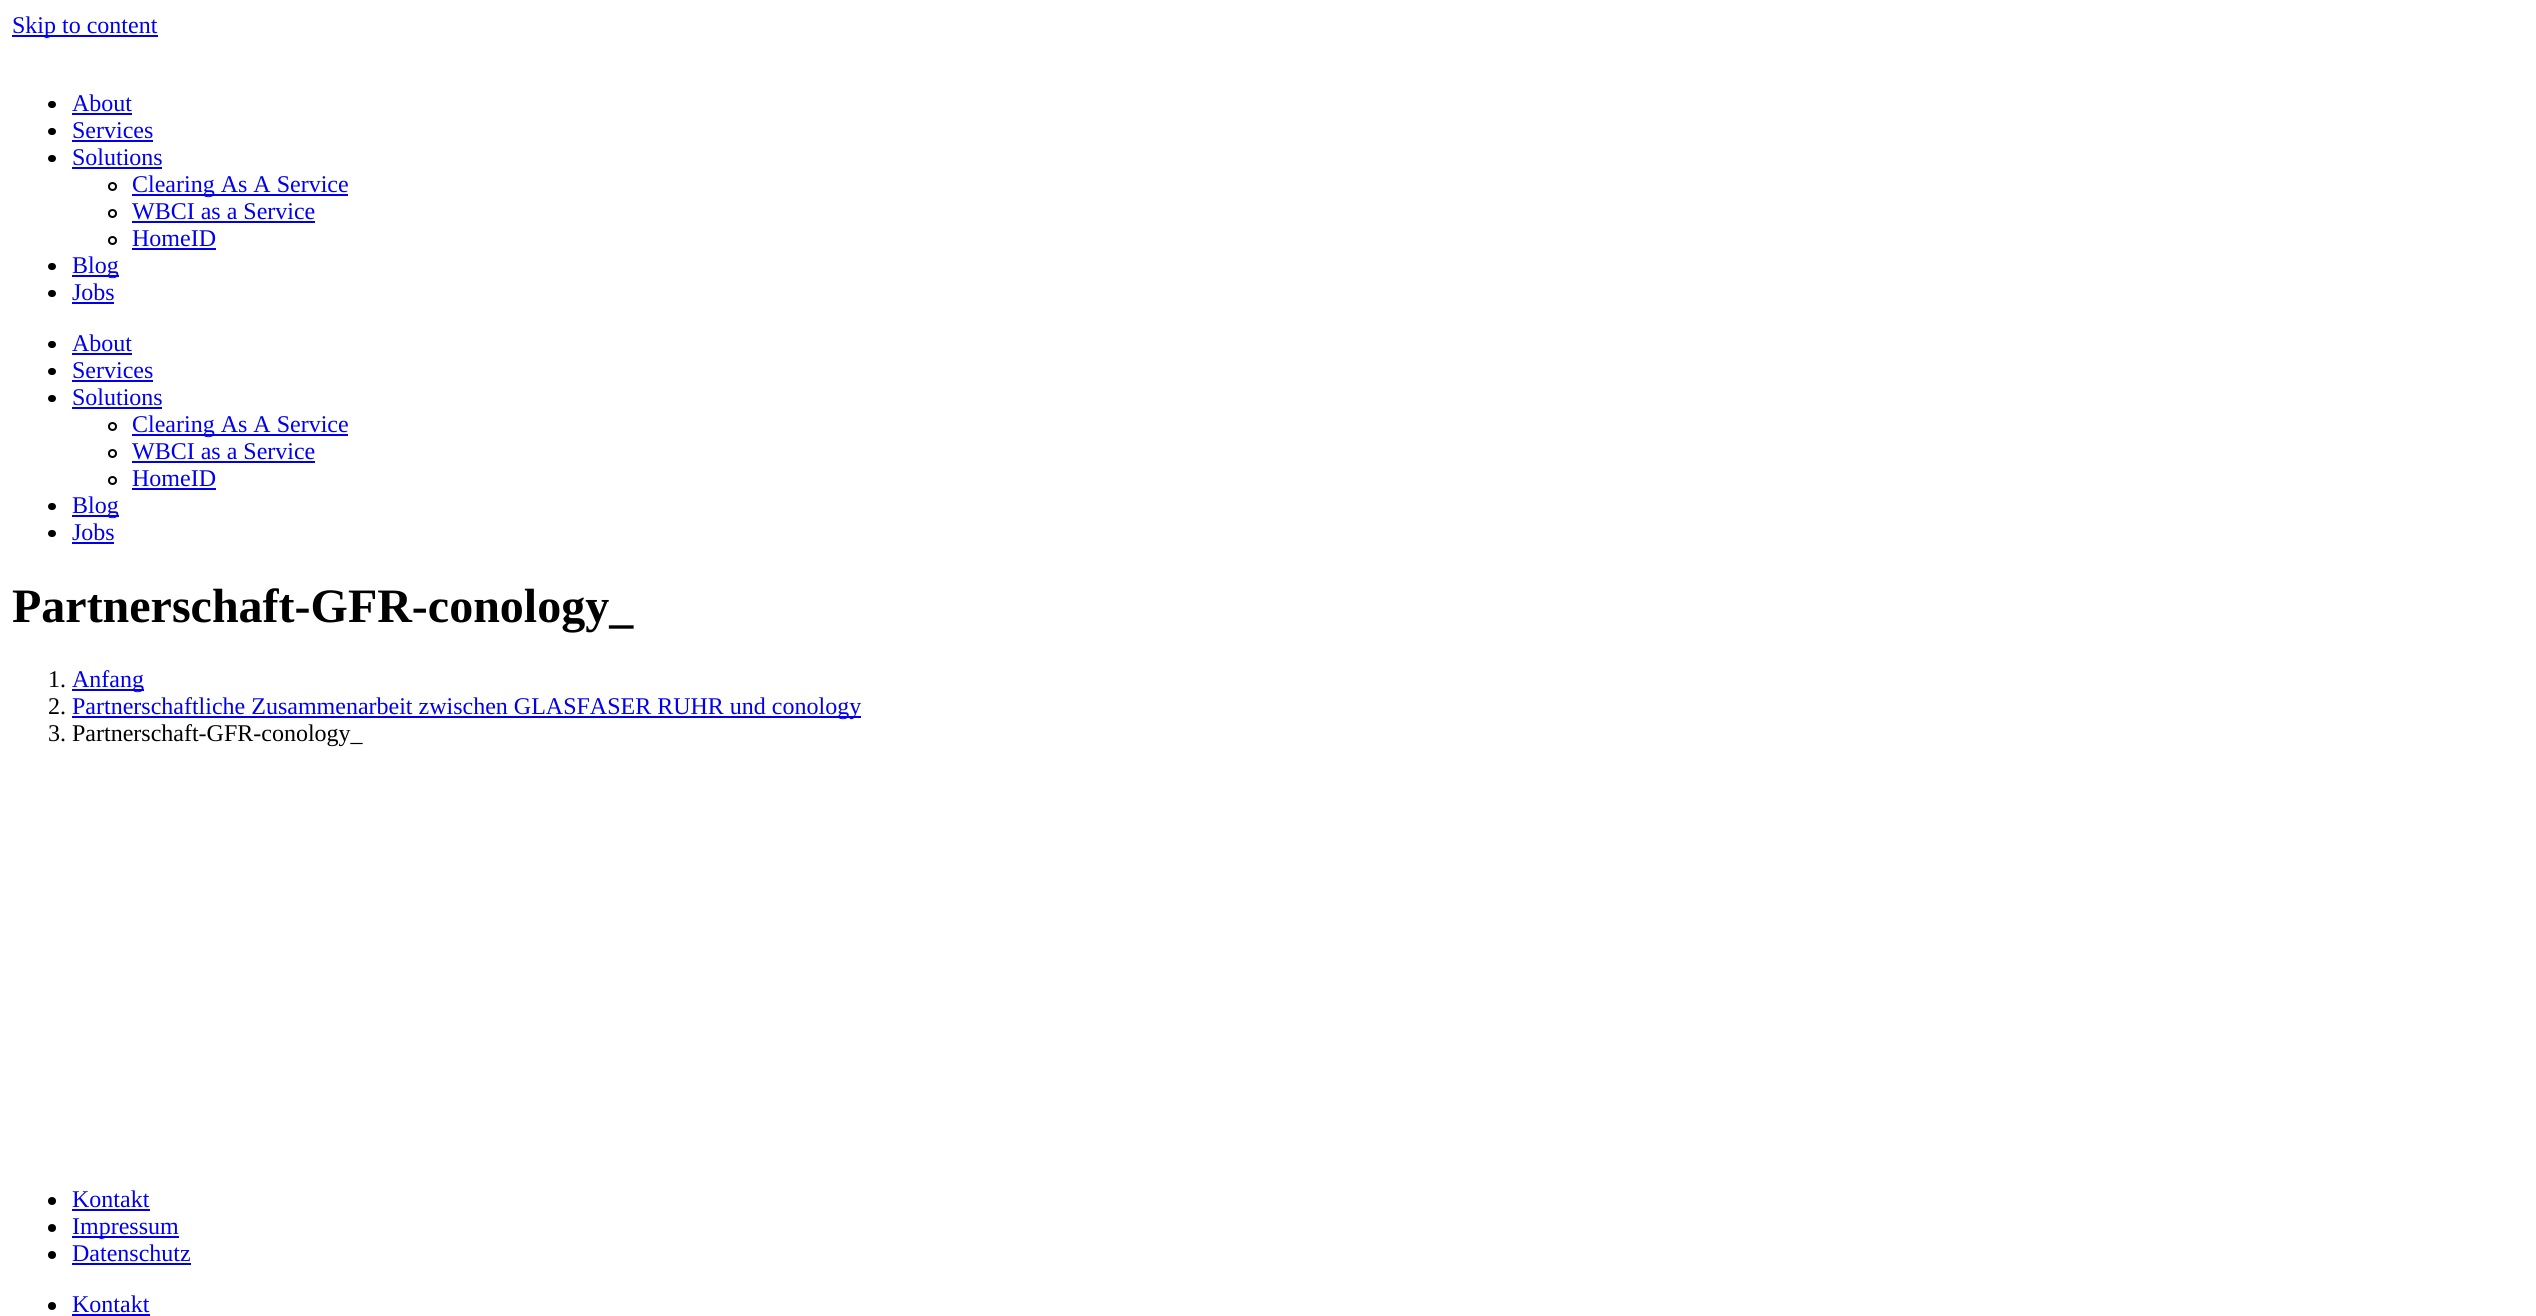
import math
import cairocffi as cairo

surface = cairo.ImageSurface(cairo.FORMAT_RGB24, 2536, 1316)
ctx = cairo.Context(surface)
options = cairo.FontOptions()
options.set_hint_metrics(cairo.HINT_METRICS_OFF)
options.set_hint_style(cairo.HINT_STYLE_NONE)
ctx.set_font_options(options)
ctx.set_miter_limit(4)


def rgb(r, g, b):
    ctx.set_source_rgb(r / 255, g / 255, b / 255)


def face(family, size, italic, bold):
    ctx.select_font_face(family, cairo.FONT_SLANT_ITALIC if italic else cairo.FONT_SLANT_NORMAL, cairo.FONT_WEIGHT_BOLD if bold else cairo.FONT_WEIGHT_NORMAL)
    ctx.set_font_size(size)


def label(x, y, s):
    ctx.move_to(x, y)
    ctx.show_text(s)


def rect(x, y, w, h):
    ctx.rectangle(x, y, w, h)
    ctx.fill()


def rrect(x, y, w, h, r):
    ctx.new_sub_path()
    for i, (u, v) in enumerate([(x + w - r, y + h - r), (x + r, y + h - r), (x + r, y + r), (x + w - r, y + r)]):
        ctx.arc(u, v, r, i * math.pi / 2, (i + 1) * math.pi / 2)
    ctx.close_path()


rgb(255, 255, 255)
ctx.paint()
rgb(0, 0, 238)
rect(12, 35, 146, 2)
face('Liberation Serif', 24, 0, 0)
label(12, 33, 'Skip to content')
rgb(0, 0, 0)
rrect(48, 101, 8, 7, 3.5)
ctx.fill()
rgb(0, 0, 238)
label(72, 111, 'About')
rect(72, 113, 60, 2)
rgb(0, 0, 0)
rrect(48, 128, 8, 7, 3.5)
ctx.fill()
rgb(0, 0, 238)
label(72, 138, 'Services')
rect(72, 140, 81, 2)
rgb(0, 0, 0)
rrect(48, 155, 8, 7, 3.5)
ctx.fill()
rgb(0, 0, 238)
label(72, 165, 'Solutions')
rect(72, 167, 90, 2)
ctx.new_path()
ctx.arc(112.5, 186.5, 3.5, 0, 2 * math.pi)
rgb(0, 0, 0)
ctx.stroke()
rgb(0, 0, 238)
rect(132, 194, 216, 2)
label(132, 192, 'Clearing As A Service')
ctx.new_path()
ctx.arc(112.5, 213.5, 3.5, 0, 2 * math.pi)
rgb(0, 0, 0)
ctx.stroke()
rgb(0, 0, 238)
label(132, 219, 'WBCI as a Service')
rect(132, 221, 183, 2)
ctx.new_path()
ctx.arc(112.5, 240.5, 3.5, 0, 2 * math.pi)
rgb(0, 0, 0)
ctx.stroke()
rgb(0, 0, 238)
label(132, 246, 'HomeID')
rect(132, 248, 84, 2)
rgb(0, 0, 0)
rrect(48, 263, 8, 7, 3.5)
ctx.fill()
rgb(0, 0, 238)
rect(72, 275, 47, 2)
label(72, 273, 'Blog')
rgb(0, 0, 0)
rrect(48, 290, 8, 7, 3.5)
ctx.fill()
rgb(0, 0, 238)
label(72, 300, 'Jobs')
rect(72, 302, 42, 2)
rgb(0, 0, 0)
rrect(48, 341, 8, 7, 3.5)
ctx.fill()
rgb(0, 0, 238)
label(72, 351, 'About')
rect(72, 353, 60, 2)
rgb(0, 0, 0)
rrect(48, 368, 8, 7, 3.5)
ctx.fill()
rgb(0, 0, 238)
label(72, 378, 'Services')
rect(72, 380, 81, 2)
rgb(0, 0, 0)
rrect(48, 395, 8, 7, 3.5)
ctx.fill()
rgb(0, 0, 238)
label(72, 405, 'Solutions')
rect(72, 407, 90, 2)
ctx.new_path()
ctx.arc(112.5, 426.5, 3.5, 0, 2 * math.pi)
rgb(0, 0, 0)
ctx.stroke()
rgb(0, 0, 238)
rect(132, 434, 216, 2)
label(132, 432, 'Clearing As A Service')
ctx.new_path()
ctx.arc(112.5, 453.5, 3.5, 0, 2 * math.pi)
rgb(0, 0, 0)
ctx.stroke()
rgb(0, 0, 238)
label(132, 459, 'WBCI as a Service')
rect(132, 461, 183, 2)
ctx.new_path()
ctx.arc(112.5, 480.5, 3.5, 0, 2 * math.pi)
rgb(0, 0, 0)
ctx.stroke()
rgb(0, 0, 238)
label(132, 486, 'HomeID')
rect(132, 488, 84, 2)
rgb(0, 0, 0)
rrect(48, 503, 8, 7, 3.5)
ctx.fill()
rgb(0, 0, 238)
rect(72, 515, 47, 2)
label(72, 513, 'Blog')
rgb(0, 0, 0)
rrect(48, 530, 8, 7, 3.5)
ctx.fill()
rgb(0, 0, 238)
label(72, 540, 'Jobs')
rect(72, 542, 42, 2)
face('Liberation Serif', 48, 0, 1)
rgb(0, 0, 0)
label(12, 622, 'Partnerschaft-GFR-conology_')
face('Liberation Serif', 24, 0, 0)
label(48, 687, '1.')
rgb(0, 0, 238)
rect(72, 689, 72, 2)
label(72, 687, 'Anfang')
rgb(0, 0, 0)
label(48, 714, '2.')
rgb(0, 0, 238)
rect(72, 716, 789, 2)
label(72, 714, 'Partnerschaftliche Zusammenarbeit zwischen GLASFASER RUHR und conology')
rgb(0, 0, 0)
label(48, 741, '3. Partnerschaft-GFR-conology_')
ctx.new_path()
ctx.arc(52, 1201, 4, 0, 2 * math.pi)
ctx.fill()
rgb(0, 0, 238)
label(72, 1207, 'Kontakt')
rect(72, 1209, 78, 2)
rgb(0, 0, 0)
ctx.new_path()
ctx.arc(52, 1228, 4, 0, 2 * math.pi)
ctx.fill()
rgb(0, 0, 238)
rect(72, 1236, 107, 2)
label(72, 1234, 'Impressum')
rgb(0, 0, 0)
ctx.new_path()
ctx.arc(52, 1255, 4, 0, 2 * math.pi)
ctx.fill()
rgb(0, 0, 238)
label(72, 1261, 'Datenschutz')
rect(72, 1263, 119, 2)
rgb(0, 0, 0)
ctx.new_path()
ctx.arc(52, 1306, 4, 0, 2 * math.pi)
ctx.fill()
rgb(0, 0, 238)
label(72, 1312, 'Kontakt')
rect(72, 1314, 78, 2)
surface.write_to_png('render.png')
